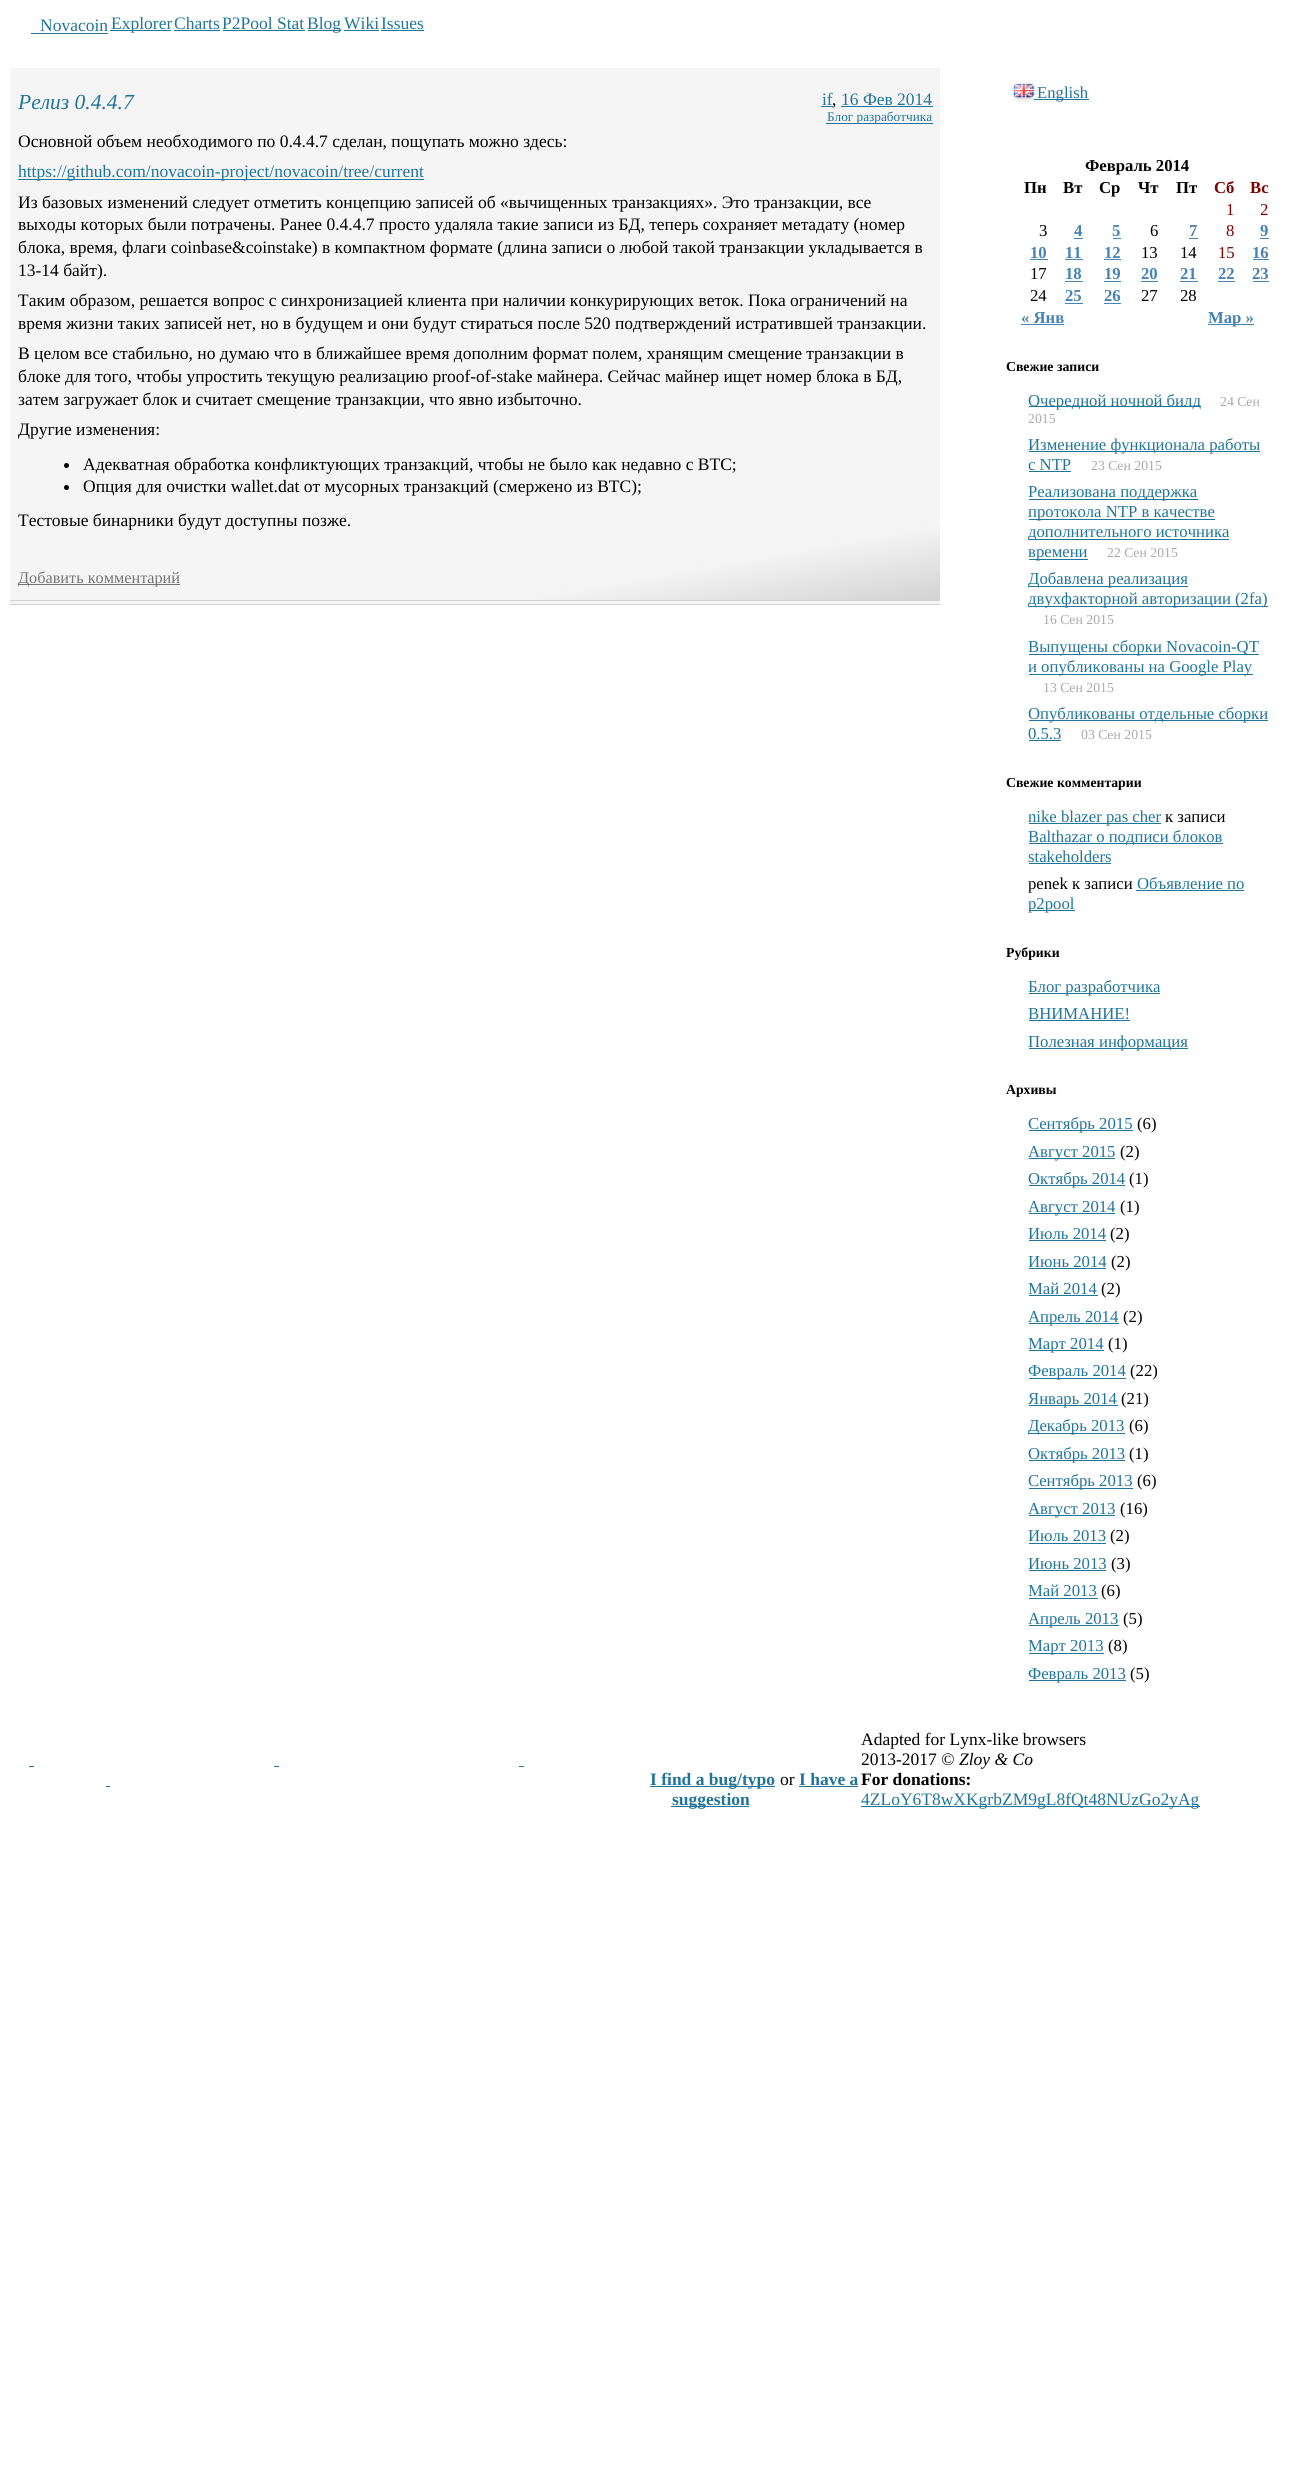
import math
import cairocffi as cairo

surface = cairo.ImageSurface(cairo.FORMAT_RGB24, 1293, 2468)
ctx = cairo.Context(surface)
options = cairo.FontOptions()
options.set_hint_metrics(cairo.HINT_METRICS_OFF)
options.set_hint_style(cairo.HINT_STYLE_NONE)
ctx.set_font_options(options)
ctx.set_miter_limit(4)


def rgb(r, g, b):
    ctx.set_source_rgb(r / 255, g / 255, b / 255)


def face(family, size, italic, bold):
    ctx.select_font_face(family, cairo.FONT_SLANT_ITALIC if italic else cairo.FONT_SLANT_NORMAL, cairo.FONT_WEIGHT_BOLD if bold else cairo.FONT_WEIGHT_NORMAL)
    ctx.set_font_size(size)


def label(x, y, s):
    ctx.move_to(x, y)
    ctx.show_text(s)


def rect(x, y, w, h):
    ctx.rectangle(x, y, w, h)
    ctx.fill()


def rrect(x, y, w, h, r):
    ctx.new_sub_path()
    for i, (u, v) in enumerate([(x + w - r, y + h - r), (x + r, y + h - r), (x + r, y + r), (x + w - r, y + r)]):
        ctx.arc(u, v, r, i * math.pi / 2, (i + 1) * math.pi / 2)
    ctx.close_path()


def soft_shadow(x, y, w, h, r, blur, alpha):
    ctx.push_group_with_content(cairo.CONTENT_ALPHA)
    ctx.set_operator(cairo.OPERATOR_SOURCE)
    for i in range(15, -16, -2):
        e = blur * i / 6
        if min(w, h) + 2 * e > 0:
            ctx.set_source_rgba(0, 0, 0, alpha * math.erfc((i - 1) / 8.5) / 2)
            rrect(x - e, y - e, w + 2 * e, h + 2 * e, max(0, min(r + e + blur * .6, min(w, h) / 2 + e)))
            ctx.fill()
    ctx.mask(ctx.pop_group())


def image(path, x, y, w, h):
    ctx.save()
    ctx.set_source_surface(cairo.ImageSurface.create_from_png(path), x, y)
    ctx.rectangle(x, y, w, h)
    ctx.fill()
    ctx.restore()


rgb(255, 255, 255)
ctx.paint()
face('Liberation Serif', 17.5, 0, 0)
rgb(33, 117, 155)
label(40, 31, 'Novacoin')
rect(31, 33, 77, 1)
rect(110, 30, 61, 1)
label(111, 29, 'Explorer')
label(174, 29, 'Charts')
rect(174, 30, 46, 1)
label(222, 29, 'P2Pool Stat')
rect(223, 30, 82, 1)
rect(308, 30, 33, 1)
label(307, 29, 'Blog')
label(344, 29, 'Wiki')
rect(344, 30, 35, 1)
label(381, 29, 'Issues')
rect(381, 30, 43, 1)
gradient = cairo.LinearGradient(535, 671, 415, -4)
gradient.add_color_stop_rgba(0, 0.827, 0.827, 0.827, 1)
gradient.add_color_stop_rgba(0.11, 0.961, 0.961, 0.961, 1)
ctx.set_source(gradient)
rect(10, 68, 930, 532)
gradient = cairo.LinearGradient(535, 1204, 415, 529)
gradient.add_color_stop_rgba(0, 0.827, 0.827, 0.827, 1)
gradient.add_color_stop_rgba(0.11, 0.961, 0.961, 0.961, 1)
ctx.set_source(gradient)
rect(10, 601, 930, 3)
rgb(211, 211, 211)
rect(10, 600, 930, 1)
rect(10, 604, 930, 1)
face('Liberation Serif', 21.5, 1, 0)
rgb(33, 117, 155)
label(18, 109, 'Релиз 0.4.4.7')
face('Liberation Serif', 17.5, 0, 0)
label(822, 105, 'if')
rect(821, 106, 12, 1)
rgb(0, 0, 0)
label(832, 105, ',')
rgb(33, 117, 155)
label(841, 105, '16 Фев 2014')
rect(841, 106, 92, 1)
rect(826, 123, 107, 1)
face('Liberation Serif', 13.25, 0, 0)
label(827, 121, 'Блог разработчика')
face('Liberation Serif', 17.5, 0, 0)
rgb(0, 0, 0)
label(18, 147, 'Основной объем необходимого по 0.4.4.7 сделан, пощупать можно здесь:')
rgb(33, 117, 155)
rect(18, 179, 406, 1)
label(18, 177, 'https://github.com/novacoin-project/novacoin/tree/current')
rgb(0, 0, 0)
label(18, 208, 'Из базовых изменений следует отметить концепцию записей об «вычищенных транзакциях». Это транзакции, все')
label(18, 230, 'выходы которых были потрачены. Ранее 0.4.4.7 просто удаляла такие записи из БД, теперь сохраняет метадату (номер')
label(18, 253, 'блока, время, флаги coinbase&coinstake) в компактном формате (длина записи о любой такой транзакции укладывается в')
label(18, 276, '13-14 байт).')
label(18, 306, 'Таким образом, решается вопрос с синхронизацией клиента при наличии конкурирующих веток. Пока ограничений на')
label(18, 329, 'время жизни таких записей нет, но в будущем и они будут стираться после 520 подтверждений истратившей транзакции.')
label(18, 359, 'В целом все стабильно, но думаю что в ближайшее время дополним формат полем, хранящим смещение транзакции в')
label(18, 382, 'блоке для того, чтобы упростить текущую реализацию proof-of-stake майнера. Сейчас майнер ищет номер блока в БД,')
label(18, 405, 'затем загружает блок и считает смещение транзакции, что явно избыточно.')
label(18, 435, 'Другие изменения:')
ctx.new_path()
ctx.arc(66.5, 465.5, 2.5, 0, 2 * math.pi)
ctx.fill()
label(83, 470, 'Адекватная обработка конфликтующих транзакций, чтобы не было как недавно с BTC;')
ctx.new_path()
ctx.arc(66.5, 487.5, 2.5, 0, 2 * math.pi)
ctx.fill()
label(83, 492, 'Опция для очистки wallet.dat от мусорных транзакций (смержено из BTC);')
label(18, 526, 'Тестовые бинарники будут доступны позже.')
rgb(117, 117, 117)
rect(18, 584, 162, 1)
face('Liberation Serif', 16.25, 0, 0)
label(18, 583, 'Добавить комментарий')
rgb(0, 0, 0)
soft_shadow(1014, 85, 20, 14, 4, 2.5, 0.2)
image('image0.png', 1013, 83, 21, 15)
rgb(33, 117, 155)
rect(1034, 99, 55, 1)
face('Liberation Serif', 16.7, 0, 0)
label(1037, 98, 'English')
face('Liberation Serif', 16.7, 0, 1)
rgb(0, 0, 0)
label(1085, 171, 'Февраль 2014')
label(1024, 193, 'Пн')
label(1063, 193, 'Вт')
label(1099, 193, 'Ср')
label(1138, 193, 'Чт')
label(1176, 193, 'Пт')
rgb(128, 0, 0)
label(1214, 193, 'Сб')
label(1250, 193, 'Вс')
face('Liberation Serif', 16.7, 0, 0)
label(1226, 215, '1')
label(1260, 215, '2')
rgb(0, 0, 0)
label(1039, 236, '3')
face('Liberation Serif', 16.7, 0, 1)
rgb(70, 130, 180)
label(1074, 236, '4')
rect(1074, 238, 9, 1)
label(1112, 236, '5')
rect(1113, 238, 8, 1)
face('Liberation Serif', 16.7, 0, 0)
rgb(0, 0, 0)
label(1150, 236, '6')
face('Liberation Serif', 16.7, 0, 1)
rgb(70, 130, 180)
label(1189, 236, '7')
rect(1189, 238, 9, 1)
face('Liberation Serif', 16.7, 0, 0)
rgb(128, 0, 0)
label(1226, 236, '8')
face('Liberation Serif', 16.7, 0, 1)
rgb(70, 130, 180)
label(1260, 236, '9')
rect(1260, 238, 9, 1)
label(1030, 258, '10')
rect(1030, 259, 18, 1)
label(1065, 258, '11')
rect(1065, 259, 18, 1)
label(1104, 258, '12')
rect(1104, 259, 17, 1)
face('Liberation Serif', 16.7, 0, 0)
rgb(0, 0, 0)
label(1141, 258, '13')
label(1180, 258, '14')
rgb(128, 0, 0)
label(1218, 258, '15')
face('Liberation Serif', 16.7, 0, 1)
rgb(70, 130, 180)
label(1252, 258, '16')
rect(1253, 259, 16, 1)
face('Liberation Serif', 16.7, 0, 0)
rgb(0, 0, 0)
label(1030, 279, '17')
face('Liberation Serif', 16.7, 0, 1)
rgb(70, 130, 180)
label(1065, 279, '18')
rect(1065, 281, 18, 1)
label(1104, 279, '19')
rect(1104, 281, 17, 1)
label(1141, 279, '20')
rect(1141, 281, 17, 1)
label(1180, 279, '21')
rect(1180, 281, 18, 1)
label(1218, 279, '22')
rect(1218, 281, 17, 1)
label(1252, 279, '23')
rect(1253, 281, 16, 1)
face('Liberation Serif', 16.7, 0, 0)
rgb(0, 0, 0)
label(1030, 301, '24')
face('Liberation Serif', 16.7, 0, 1)
rgb(70, 130, 180)
label(1065, 301, '25')
rect(1065, 303, 18, 1)
label(1104, 301, '26')
rect(1104, 303, 17, 1)
face('Liberation Serif', 16.7, 0, 0)
rgb(0, 0, 0)
label(1141, 301, '27')
label(1180, 301, '28')
face('Liberation Serif', 16.7, 0, 1)
rgb(70, 130, 180)
label(1021, 323, '« Янв')
rect(1021, 324, 43, 1)
rect(1208, 324, 46, 1)
label(1208, 323, 'Мар »')
face('Liberation Serif', 13.75, 0, 1)
rgb(0, 0, 0)
label(1006, 371, 'Свежие записи')
rgb(33, 117, 155)
rect(1029, 406, 172, 1)
face('Liberation Serif', 16.7, 0, 0)
label(1028, 406, 'Очередной ночной билд')
face('Liberation Serif', 13.75, 0, 0)
rgb(170, 170, 170)
label(1220, 406, '24 Сен')
label(1028, 423, '2015')
rgb(33, 117, 155)
rect(1029, 451, 231, 1)
face('Liberation Serif', 16.7, 0, 0)
label(1028, 450, 'Изменение функционала работы')
label(1028, 470, 'с NTP')
rect(1029, 471, 42, 1)
face('Liberation Serif', 13.75, 0, 0)
rgb(170, 170, 170)
label(1091, 470, '23 Сен 2015')
rgb(33, 117, 155)
rect(1029, 499, 169, 1)
face('Liberation Serif', 16.7, 0, 0)
label(1028, 497, 'Реализована поддержка')
rect(1029, 519, 186, 1)
label(1028, 517, 'протокола NTP в качестве')
rect(1029, 539, 200, 1)
label(1028, 537, 'дополнительного источника')
rect(1029, 559, 59, 1)
label(1028, 557, 'времени')
face('Liberation Serif', 13.75, 0, 0)
rgb(170, 170, 170)
label(1107, 557, '22 Сен 2015')
rgb(33, 117, 155)
rect(1029, 586, 159, 1)
face('Liberation Serif', 16.7, 0, 0)
label(1028, 584, 'Добавлена реализация')
rect(1029, 606, 239, 1)
label(1028, 604, 'двухфакторной авторизации (2fa)')
face('Liberation Serif', 13.75, 0, 0)
rgb(170, 170, 170)
label(1043, 624, '16 Сен 2015')
rgb(33, 117, 155)
rect(1029, 654, 230, 1)
face('Liberation Serif', 16.7, 0, 0)
label(1028, 652, 'Выпущены сборки Novacoin-QT')
rect(1029, 674, 224, 1)
label(1028, 672, 'и опубликованы на Google Play')
face('Liberation Serif', 13.75, 0, 0)
rgb(170, 170, 170)
label(1043, 692, '13 Сен 2015')
rgb(33, 117, 155)
rect(1029, 720, 239, 1)
face('Liberation Serif', 16.7, 0, 0)
label(1028, 719, 'Опубликованы отдельные сборки')
label(1028, 739, '0.5.3')
rect(1029, 740, 32, 1)
face('Liberation Serif', 13.75, 0, 0)
rgb(170, 170, 170)
label(1081, 739, '03 Сен 2015')
face('Liberation Serif', 13.75, 0, 1)
rgb(0, 0, 0)
label(1006, 787, 'Свежие комментарии')
rgb(33, 117, 155)
rect(1029, 823, 132, 1)
face('Liberation Serif', 16.7, 0, 0)
label(1028, 822, 'nike blazer pas cher')
rgb(0, 0, 0)
label(1165, 822, 'к записи')
rgb(33, 117, 155)
rect(1029, 843, 194, 1)
label(1028, 842, 'Balthazar о подписи блоков')
label(1028, 862, 'stakeholders')
rect(1029, 863, 82, 1)
rgb(0, 0, 0)
label(1028, 889, 'penek к записи')
rgb(33, 117, 155)
label(1137, 889, 'Объявление по')
rect(1136, 890, 108, 1)
rect(1029, 910, 46, 1)
label(1028, 909, 'p2pool')
face('Liberation Serif', 13.75, 0, 1)
rgb(0, 0, 0)
label(1006, 957, 'Рубрики')
rgb(33, 117, 155)
rect(1029, 993, 131, 1)
face('Liberation Serif', 16.7, 0, 0)
label(1028, 992, 'Блог разработчика')
label(1028, 1019, 'ВНИМАНИЕ!')
rect(1029, 1020, 101, 1)
rect(1029, 1048, 159, 1)
label(1028, 1047, 'Полезная информация')
face('Liberation Serif', 13.75, 0, 1)
rgb(0, 0, 0)
label(1006, 1094, 'Архивы')
rgb(33, 117, 155)
rect(1029, 1130, 104, 1)
face('Liberation Serif', 16.7, 0, 0)
label(1028, 1129, 'Сентябрь 2015')
rgb(0, 0, 0)
label(1137, 1129, '(6)')
rgb(33, 117, 155)
rect(1029, 1158, 86, 1)
label(1028, 1157, 'Август 2015')
rgb(0, 0, 0)
label(1120, 1157, '(2)')
rgb(33, 117, 155)
rect(1029, 1185, 96, 1)
label(1028, 1184, 'Октябрь 2014')
rgb(0, 0, 0)
label(1129, 1184, '(1)')
rgb(33, 117, 155)
rect(1029, 1213, 86, 1)
label(1028, 1212, 'Август 2014')
rgb(0, 0, 0)
label(1120, 1212, '(1)')
rgb(33, 117, 155)
label(1028, 1239, 'Июль 2014')
rect(1029, 1240, 77, 1)
rgb(0, 0, 0)
label(1110, 1239, '(2)')
rgb(33, 117, 155)
label(1028, 1267, 'Июнь 2014')
rect(1029, 1268, 77, 1)
rgb(0, 0, 0)
label(1111, 1267, '(2)')
rgb(33, 117, 155)
label(1028, 1294, 'Май 2014')
rect(1029, 1295, 69, 1)
rgb(0, 0, 0)
label(1101, 1294, '(2)')
rgb(33, 117, 155)
rect(1029, 1323, 90, 1)
label(1028, 1322, 'Апрель 2014')
rgb(0, 0, 0)
label(1123, 1322, '(2)')
rgb(33, 117, 155)
rect(1029, 1350, 75, 1)
label(1028, 1349, 'Март 2014')
rgb(0, 0, 0)
label(1108, 1349, '(1)')
rgb(33, 117, 155)
rect(1029, 1378, 97, 1)
label(1028, 1376, 'Февраль 2014')
rgb(0, 0, 0)
label(1130, 1376, '(22)')
rgb(33, 117, 155)
rect(1029, 1405, 89, 1)
label(1028, 1404, 'Январь 2014')
rgb(0, 0, 0)
label(1121, 1404, '(21)')
rgb(33, 117, 155)
rect(1029, 1433, 96, 1)
label(1028, 1431, 'Декабрь 2013')
rgb(0, 0, 0)
label(1129, 1431, '(6)')
rgb(33, 117, 155)
rect(1029, 1460, 96, 1)
label(1028, 1459, 'Октябрь 2013')
rgb(0, 0, 0)
label(1129, 1459, '(1)')
rgb(33, 117, 155)
rect(1029, 1488, 104, 1)
label(1028, 1486, 'Сентябрь 2013')
rgb(0, 0, 0)
label(1137, 1486, '(6)')
rgb(33, 117, 155)
rect(1029, 1515, 86, 1)
label(1028, 1514, 'Август 2013')
rgb(0, 0, 0)
label(1120, 1514, '(16)')
rgb(33, 117, 155)
label(1028, 1541, 'Июль 2013')
rect(1029, 1543, 77, 1)
rgb(0, 0, 0)
label(1110, 1541, '(2)')
rgb(33, 117, 155)
label(1028, 1569, 'Июнь 2013')
rect(1029, 1570, 77, 1)
rgb(0, 0, 0)
label(1111, 1569, '(3)')
rgb(33, 117, 155)
label(1028, 1596, 'Май 2013')
rect(1029, 1598, 69, 1)
rgb(0, 0, 0)
label(1101, 1596, '(6)')
rgb(33, 117, 155)
rect(1029, 1625, 90, 1)
label(1028, 1624, 'Апрель 2013')
rgb(0, 0, 0)
label(1123, 1624, '(5)')
rgb(33, 117, 155)
rect(1029, 1653, 75, 1)
label(1028, 1651, 'Март 2013')
rgb(0, 0, 0)
label(1108, 1651, '(8)')
rgb(33, 117, 155)
rect(1029, 1680, 97, 1)
label(1028, 1679, 'Февраль 2013')
rgb(0, 0, 0)
label(1130, 1679, '(5)')
rgb(33, 117, 155)
rect(29, 1766, 5, 1)
rect(274, 1766, 5, 1)
rect(519, 1766, 5, 1)
rect(106, 1786, 4, 1)
rect(650, 1786, 125, 1)
face('Liberation Serif', 17.5, 0, 1)
label(650, 1785, 'I find a bug/typo')
face('Liberation Serif', 17.5, 0, 0)
rgb(0, 0, 0)
label(780, 1785, 'or')
rgb(33, 117, 155)
rect(799, 1786, 59, 1)
face('Liberation Serif', 17.5, 0, 1)
label(799, 1785, 'I have a')
rect(671, 1806, 78, 1)
label(672, 1805, 'suggestion')
face('Liberation Serif', 17.5, 0, 0)
rgb(0, 0, 0)
label(861, 1745, 'Adapted for Lynx-like browsers')
label(861, 1765, '2013-2017 ©')
face('Liberation Serif', 17.5, 1, 0)
label(959, 1765, 'Zloy & Co')
face('Liberation Serif', 17.5, 0, 1)
label(861, 1785, 'For donations:')
rgb(33, 117, 155)
rect(861, 1806, 339, 1)
face('Liberation Serif', 17.5, 0, 0)
label(861, 1805, '4ZLoY6T8wXKgrbZM9gL8fQt48NUzGo2yAg')
surface.write_to_png('render.png')
